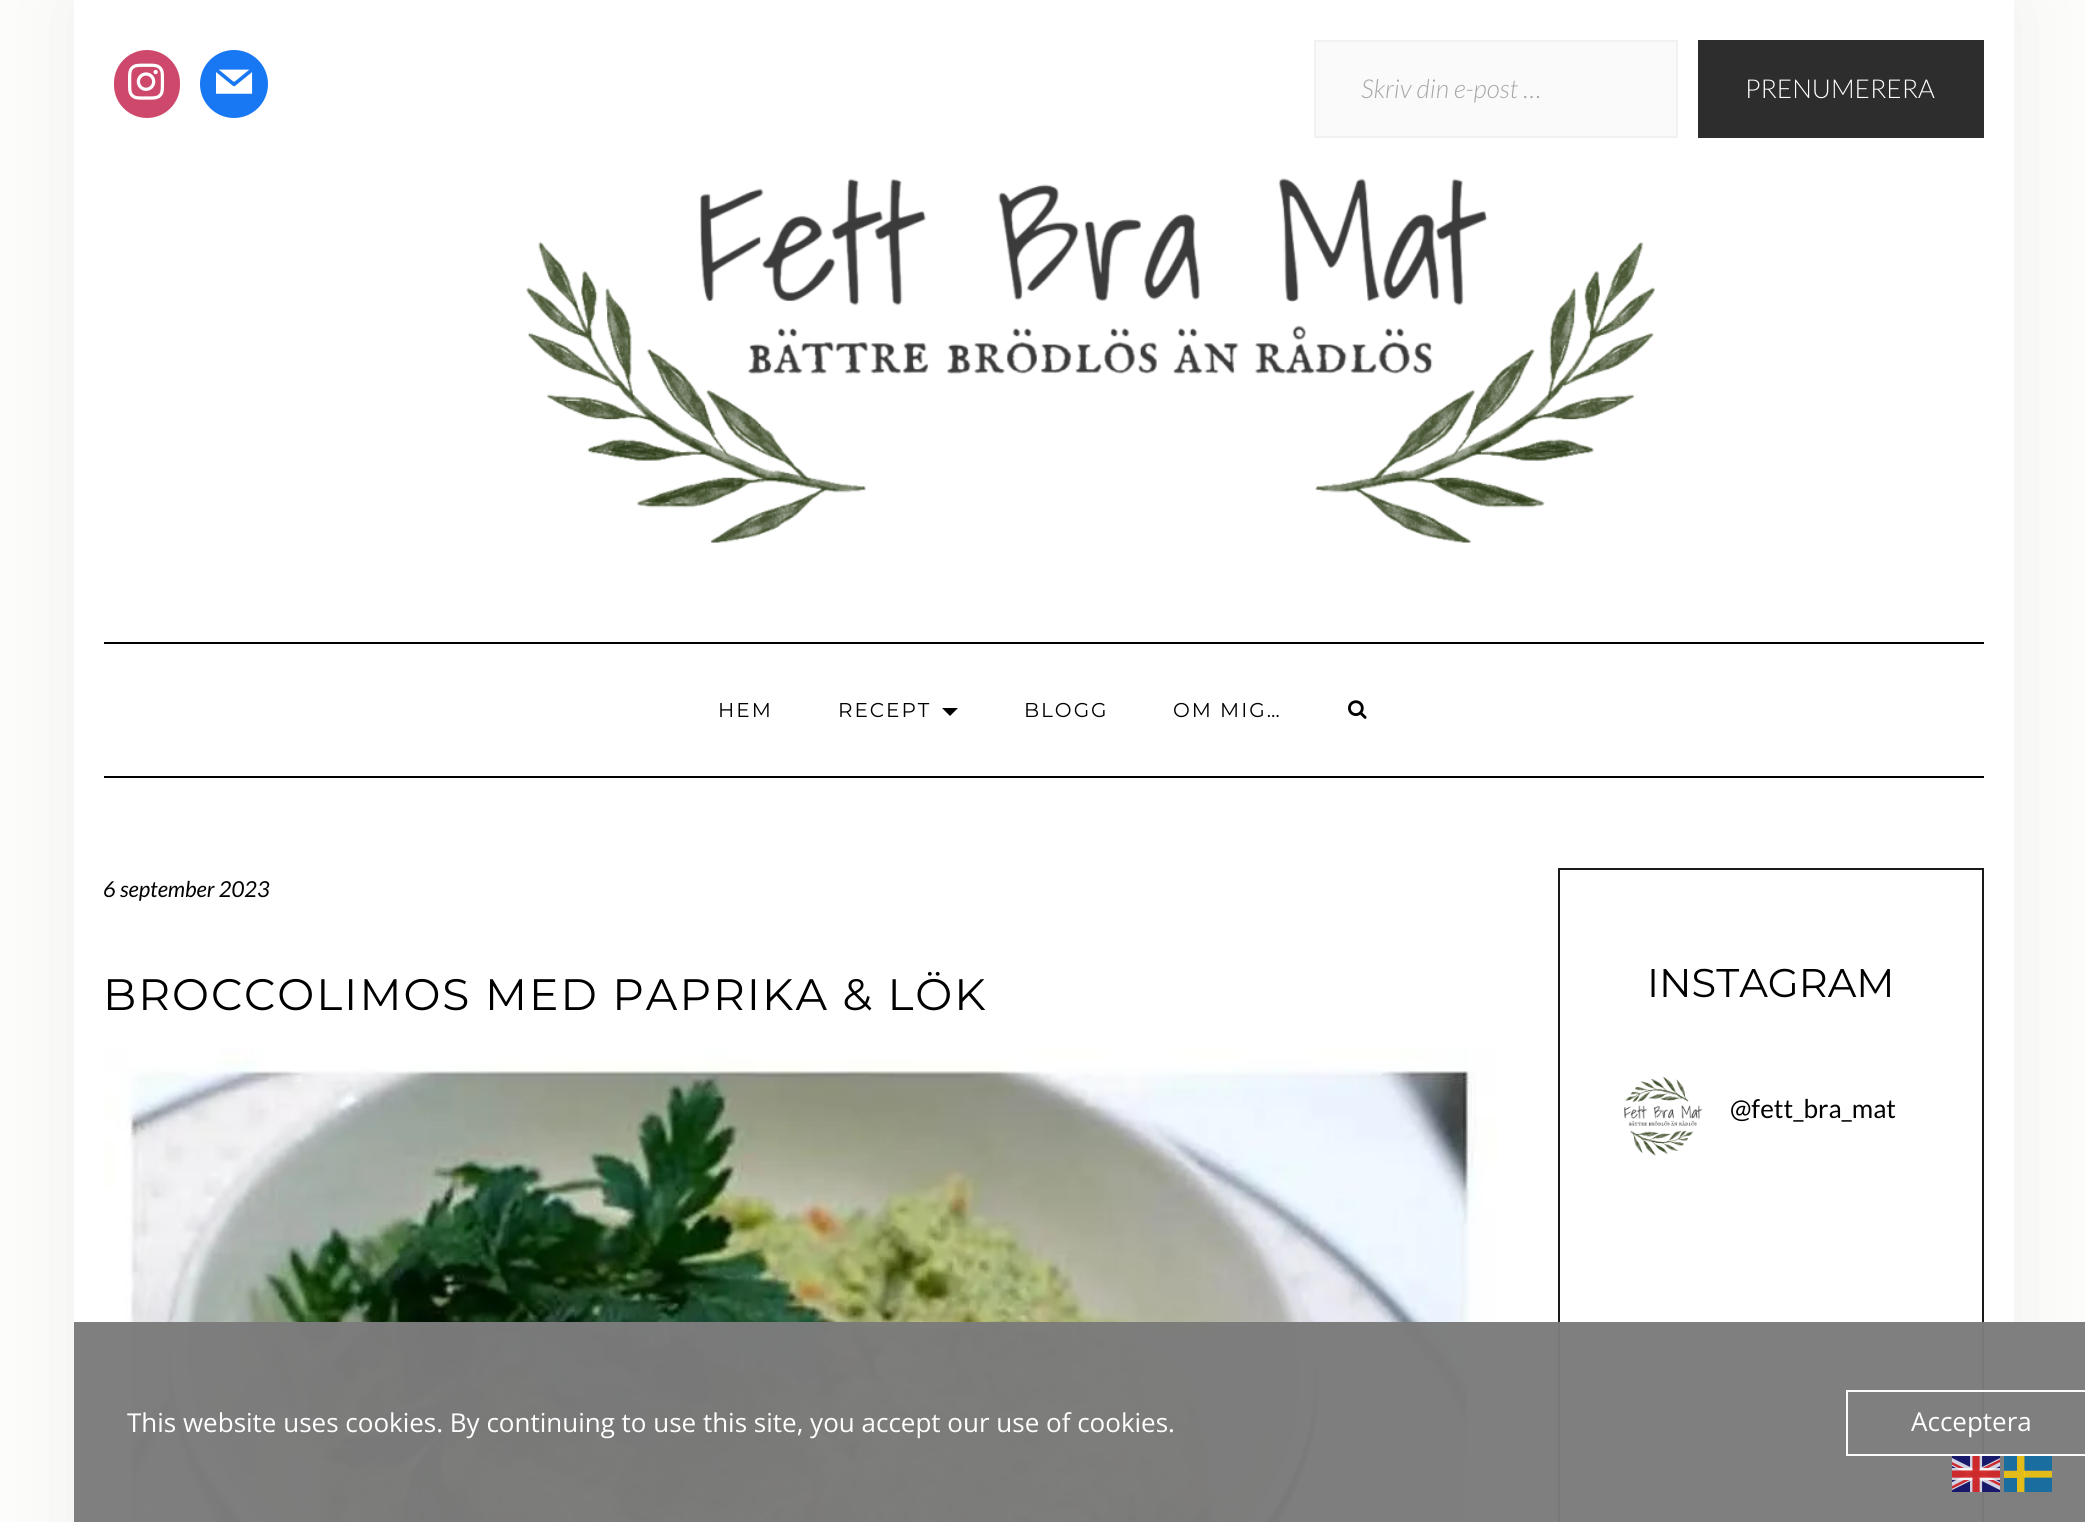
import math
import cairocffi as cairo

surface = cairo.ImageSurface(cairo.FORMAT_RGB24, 2085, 1522)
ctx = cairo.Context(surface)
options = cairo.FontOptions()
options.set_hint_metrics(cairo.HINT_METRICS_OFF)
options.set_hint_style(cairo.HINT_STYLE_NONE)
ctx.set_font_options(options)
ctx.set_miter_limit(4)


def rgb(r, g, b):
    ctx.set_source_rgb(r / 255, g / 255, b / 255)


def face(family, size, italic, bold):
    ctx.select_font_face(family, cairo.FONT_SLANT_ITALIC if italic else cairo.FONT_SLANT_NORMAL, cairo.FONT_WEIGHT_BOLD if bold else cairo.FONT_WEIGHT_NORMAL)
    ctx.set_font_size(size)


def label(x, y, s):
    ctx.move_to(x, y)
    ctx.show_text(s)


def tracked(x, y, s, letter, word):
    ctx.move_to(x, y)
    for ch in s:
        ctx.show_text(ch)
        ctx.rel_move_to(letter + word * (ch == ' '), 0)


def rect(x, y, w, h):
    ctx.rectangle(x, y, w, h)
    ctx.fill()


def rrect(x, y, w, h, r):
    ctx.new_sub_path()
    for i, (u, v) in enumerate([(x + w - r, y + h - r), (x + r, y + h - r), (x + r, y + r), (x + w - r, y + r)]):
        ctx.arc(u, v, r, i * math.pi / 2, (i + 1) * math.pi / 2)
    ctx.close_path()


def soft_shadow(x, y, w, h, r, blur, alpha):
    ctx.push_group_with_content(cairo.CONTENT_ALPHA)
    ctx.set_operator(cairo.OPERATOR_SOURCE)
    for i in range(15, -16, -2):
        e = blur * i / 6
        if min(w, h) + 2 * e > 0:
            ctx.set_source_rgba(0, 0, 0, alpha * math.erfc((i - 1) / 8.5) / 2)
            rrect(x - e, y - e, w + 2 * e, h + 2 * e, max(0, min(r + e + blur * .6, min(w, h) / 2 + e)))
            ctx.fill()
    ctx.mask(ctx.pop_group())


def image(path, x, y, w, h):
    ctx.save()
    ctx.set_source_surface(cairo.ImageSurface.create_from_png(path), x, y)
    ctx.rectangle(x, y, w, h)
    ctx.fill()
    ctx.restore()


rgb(253, 253, 251)
ctx.paint()
rgb(0, 0, 0)
soft_shadow(74, 0, 1940, 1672, 0, 50, 0.06)
rgb(255, 255, 255)
rect(74, 0, 1940, 1522)
rgb(205, 72, 107)
rrect(114, 50, 66, 68, 33)
ctx.fill()
image('image0.png', 128, 63, 37, 37)
rgb(24, 119, 242)
ctx.arc(234, 84, 34, 0, 2 * math.pi)
ctx.fill()
image('image1.png', 216, 69, 37, 25)
rgb(250, 250, 250)
ctx.rectangle(1315, 41, 362, 96)
ctx.fill_preserve()
rgb(241, 241, 241)
ctx.stroke()
face('Lato Light', 26, 1, 0)
rgb(167, 167, 167)
label(1361, 98, 'Skriv din e-post …')
rgb(45, 45, 45)
rect(1698, 40, 286, 98)
face('Lato Light', 26, 0, 0)
rgb(255, 255, 255)
label(1745, 98, 'PRENUMERERA')
image('image2.png', 526, 178, 1129, 365)
rgb(0, 0, 0)
rect(104, 642, 1880, 2)
rect(104, 776, 1880, 2)
face('Montserrat', 20, 0, 0)
tracked(718, 717, 'HEM', 2, 0)
tracked(838, 717, 'RECEPT', 2, 0)
ctx.new_path()
ctx.move_to(942, 708)
ctx.line_to(958, 708)
ctx.line_to(950, 716)
ctx.close_path()
ctx.fill()
tracked(1024, 717, 'BLOGG', 2, 0)
tracked(1173, 717, 'OM MIG…', 2, 0)
image('image3.png', 1348, 700, 19, 19)
face('Lato', 22, 1, 0)
label(103, 897, '6 september 2023')
face('Montserrat', 44, 0, 0)
tracked(103, 1010, 'BROCCOLIMOS MED PAPRIKA & LÖK', 2, 0)
image('image4.png', 104, 1048, 1394, 474)
ctx.rectangle(1559, 869, 424, 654)
rgb(26, 26, 26)
ctx.stroke()
face('Montserrat', 40, 0, 0)
rgb(0, 0, 0)
label(1647, 997, 'INSTAGRAM')
image('image5.png', 1624, 1076, 79, 80)
face('Lato', 26, 0, 0)
label(1730, 1118, '@fett_bra_mat')
ctx.set_source_rgba(0.486, 0.486, 0.486, 0.97)
rect(74, 1322, 2011, 200)
face('Open Sans', 26, 0, 0)
rgb(255, 255, 255)
label(127, 1432, 'This website uses cookies. By continuing to use this site, you accept our use of cookies.')
ctx.rectangle(1847, 1391, 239, 64)
ctx.set_source_rgba(1, 1, 1, 0.97)
ctx.stroke()
rgb(255, 255, 255)
label(1911, 1431, 'Acceptera')
image('image6.png', 1952, 1456, 48, 36)
image('image7.png', 2004, 1456, 48, 36)
surface.write_to_png('render.png')
